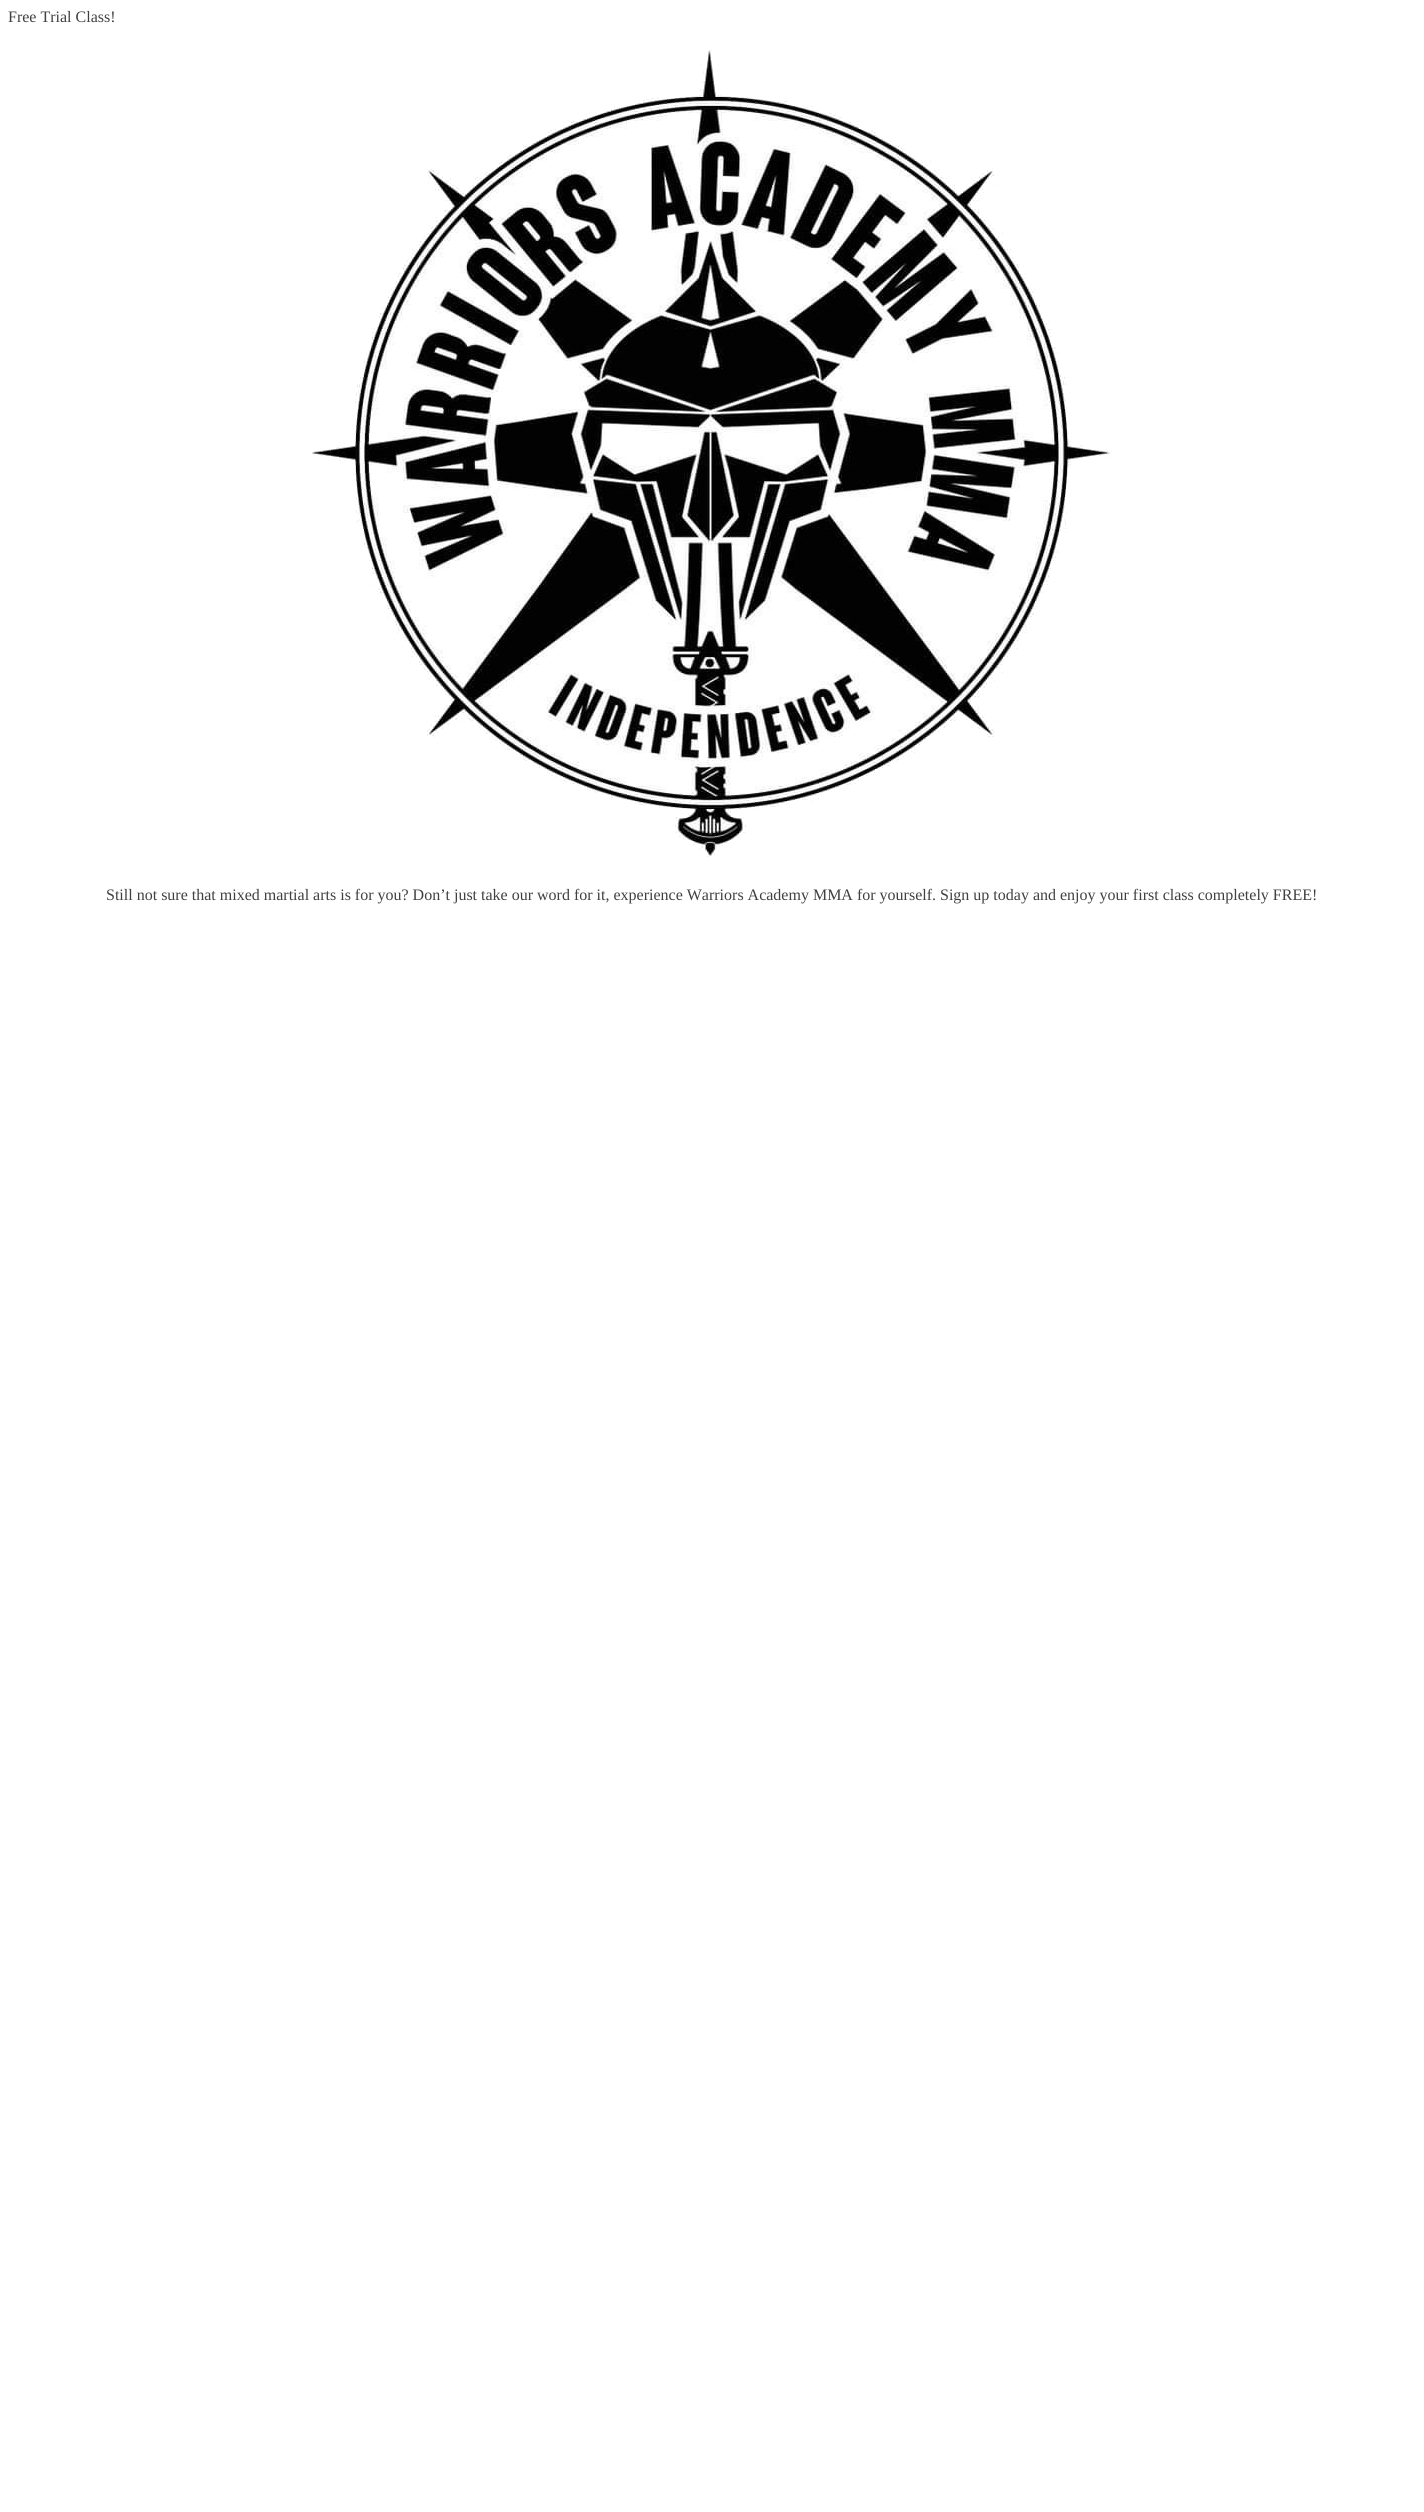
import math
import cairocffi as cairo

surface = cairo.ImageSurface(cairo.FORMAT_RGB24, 1424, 2512)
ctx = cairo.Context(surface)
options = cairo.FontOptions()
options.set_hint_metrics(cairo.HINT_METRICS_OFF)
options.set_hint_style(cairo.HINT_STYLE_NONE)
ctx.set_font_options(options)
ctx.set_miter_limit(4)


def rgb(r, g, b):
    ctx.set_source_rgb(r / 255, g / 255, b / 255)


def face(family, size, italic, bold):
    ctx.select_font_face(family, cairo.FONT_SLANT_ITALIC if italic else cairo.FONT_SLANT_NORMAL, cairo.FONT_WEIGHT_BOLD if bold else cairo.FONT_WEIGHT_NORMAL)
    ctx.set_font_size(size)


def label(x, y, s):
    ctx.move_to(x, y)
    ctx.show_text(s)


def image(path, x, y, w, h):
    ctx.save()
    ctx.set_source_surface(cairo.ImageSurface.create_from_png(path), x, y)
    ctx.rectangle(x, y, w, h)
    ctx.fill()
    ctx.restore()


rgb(255, 255, 255)
ctx.paint()
face('Liberation Serif', 16, 0, 0)
rgb(64, 64, 64)
label(8, 22, 'Free Trial Class!')
image('image0.png', 312, 49, 798, 808)
label(106, 900, 'Still not sure that mixed martial arts is for you? Don’t just take our word for it, experience Warriors Academy MMA for yourself. Sign up today and enjoy your first class completely FREE!')
surface.write_to_png('render.png')
